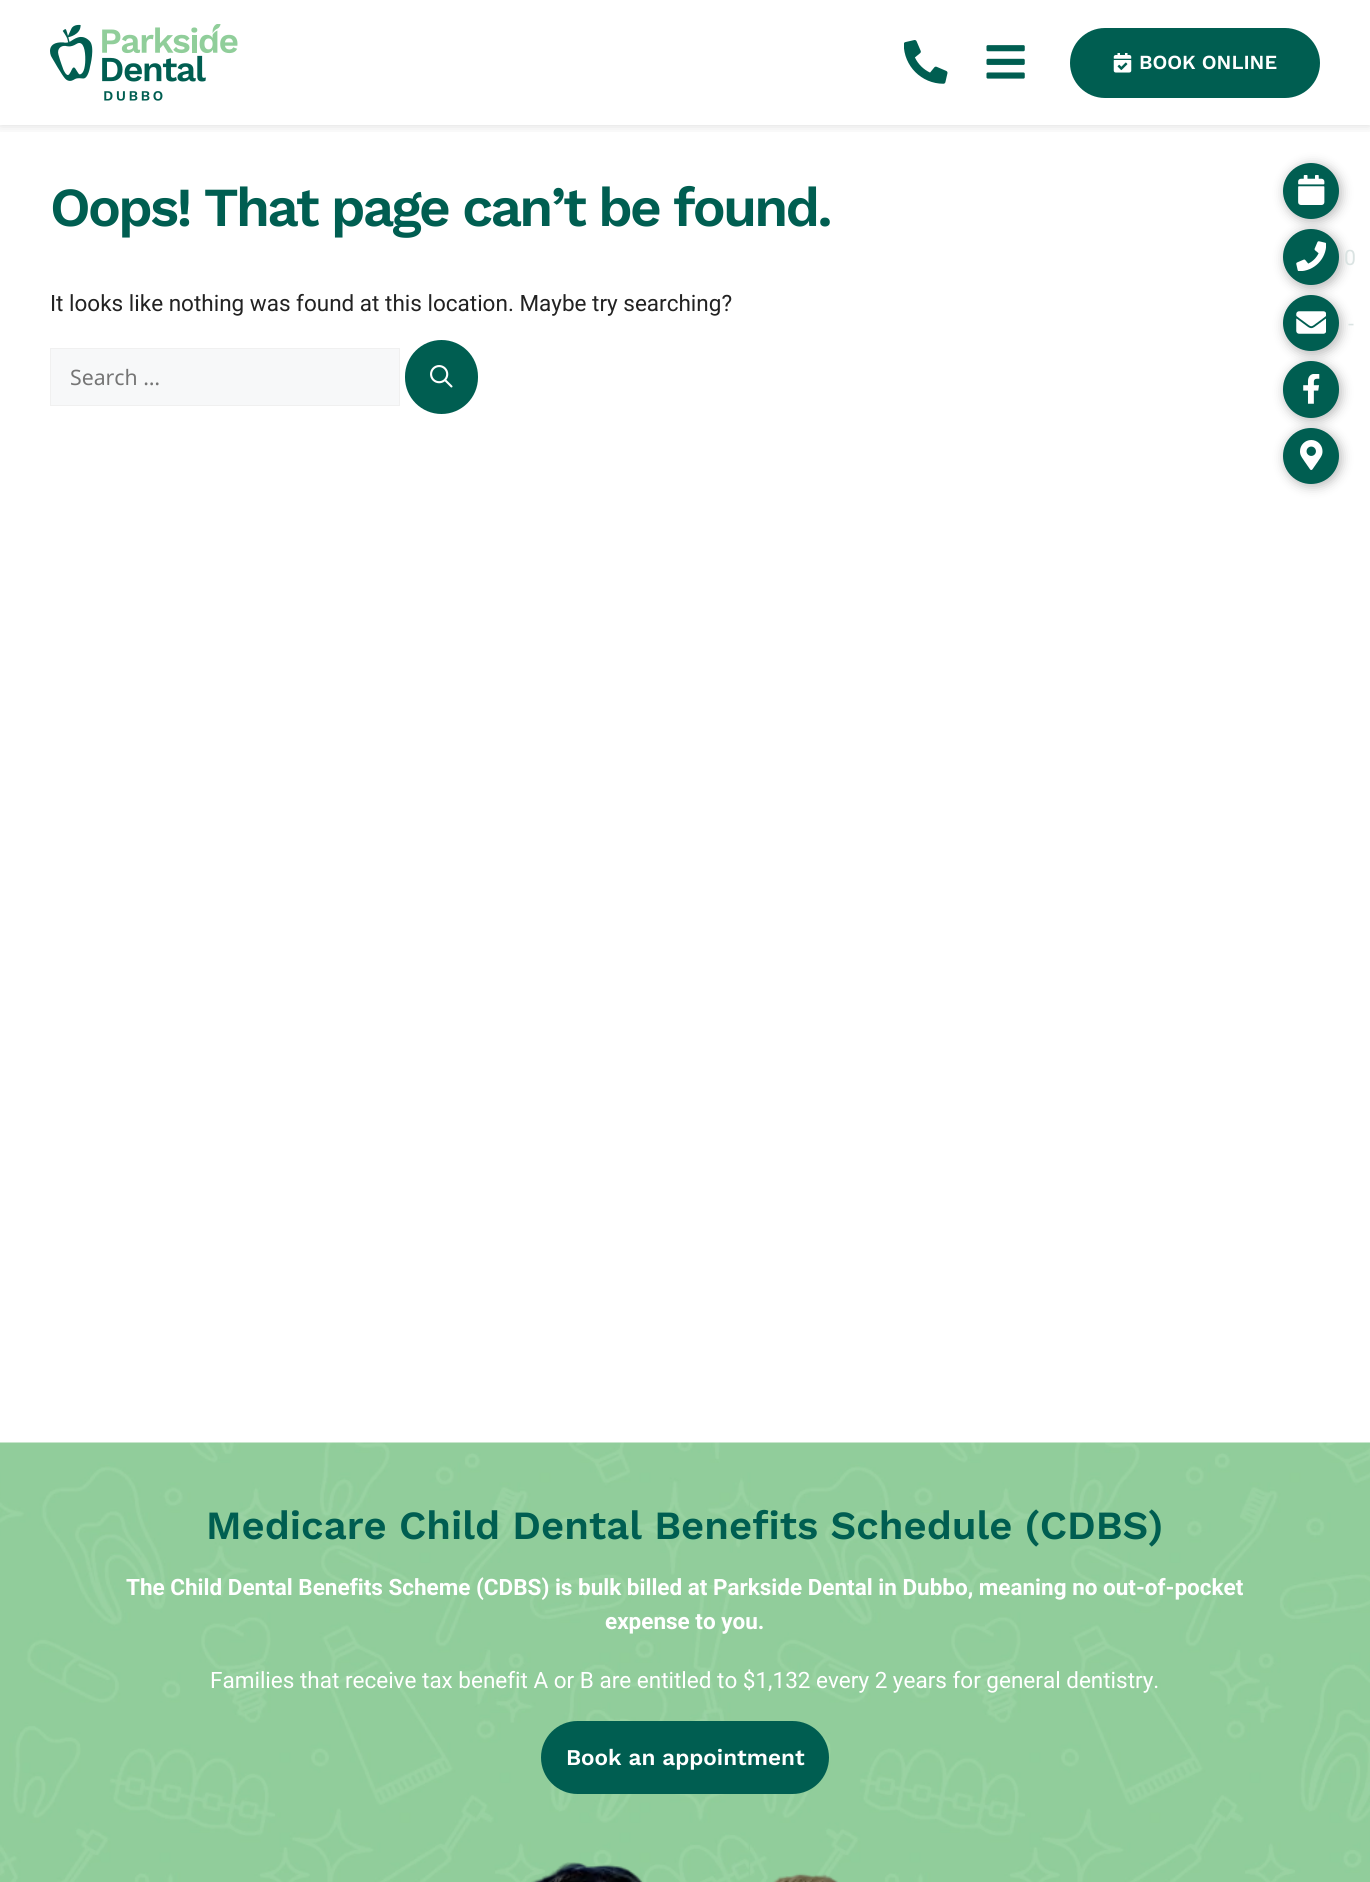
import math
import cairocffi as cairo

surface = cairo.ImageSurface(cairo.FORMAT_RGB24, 1370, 1882)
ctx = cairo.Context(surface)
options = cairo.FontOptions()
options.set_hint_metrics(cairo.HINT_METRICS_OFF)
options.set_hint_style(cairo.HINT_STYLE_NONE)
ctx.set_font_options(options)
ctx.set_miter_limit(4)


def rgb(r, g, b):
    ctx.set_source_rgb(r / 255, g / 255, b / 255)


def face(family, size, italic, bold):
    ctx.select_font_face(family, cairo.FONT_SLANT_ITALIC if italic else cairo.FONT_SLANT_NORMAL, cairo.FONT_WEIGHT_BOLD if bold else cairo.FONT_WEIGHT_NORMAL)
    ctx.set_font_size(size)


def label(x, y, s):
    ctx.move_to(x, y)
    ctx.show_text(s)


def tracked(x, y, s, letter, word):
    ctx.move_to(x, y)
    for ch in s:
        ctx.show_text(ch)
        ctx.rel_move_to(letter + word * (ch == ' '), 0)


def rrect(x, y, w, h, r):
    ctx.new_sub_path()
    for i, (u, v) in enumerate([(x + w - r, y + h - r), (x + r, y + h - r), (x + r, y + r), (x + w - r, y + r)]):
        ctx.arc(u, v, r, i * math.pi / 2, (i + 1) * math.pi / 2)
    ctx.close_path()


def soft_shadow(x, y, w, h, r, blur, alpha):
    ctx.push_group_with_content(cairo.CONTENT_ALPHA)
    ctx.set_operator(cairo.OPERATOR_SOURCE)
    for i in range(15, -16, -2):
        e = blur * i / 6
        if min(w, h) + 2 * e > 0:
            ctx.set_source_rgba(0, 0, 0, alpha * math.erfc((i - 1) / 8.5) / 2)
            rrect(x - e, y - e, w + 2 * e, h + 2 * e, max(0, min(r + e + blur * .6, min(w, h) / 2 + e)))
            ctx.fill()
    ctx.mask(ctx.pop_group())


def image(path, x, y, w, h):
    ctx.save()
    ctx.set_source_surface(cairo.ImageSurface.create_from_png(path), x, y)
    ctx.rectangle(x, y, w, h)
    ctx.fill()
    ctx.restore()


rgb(255, 255, 255)
ctx.paint()
face('Work Sans SemiBold', 55, 0, 0)
rgb(0, 94, 81)
tracked(50, 226, 'Oops! That page can’t be found.', -2.75, 0)
face('Roboto', 22.5, 0, 0)
rgb(34, 34, 34)
label(50, 311, 'It looks like nothing was found at this location. Maybe try searching?')
rgb(247, 248, 249)
ctx.rectangle(50.5, 348.5, 349, 57)
ctx.fill_preserve()
rgb(240, 240, 240)
ctx.set_line_width(1)
ctx.stroke()
face('Noto Sans', 21.25, 0, 0)
rgb(117, 117, 117)
label(70, 385, 'Search …')
rgb(0, 94, 81)
rrect(405, 340, 73, 74, 36.5)
ctx.fill()
image('image0.png', 430, 365, 23, 23)
ctx.save()
ctx.rectangle(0, 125, 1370, 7)
ctx.clip()
rgb(0, 0, 0)
soft_shadow(0, 0, 1370, 125, 0, 6, 0.15)
ctx.restore()
image('image1.png', 50, 24, 188, 77)
image('image2.png', 904, 40, 44, 44)
image('image3.png', 986, 45, 39, 34)
rrect(1070, 28, 250, 70, 35)
ctx.fill()
image('image4.png', 1113, 53, 19, 20)
face('Work Sans SemiBold', 20, 0, 0)
rgb(255, 255, 255)
label(1139, 69, 'BOOK ONLINE')
rgb(0, 0, 0)
soft_shadow(1285, 165, 56, 56, 28, 6, 0.29)
rgb(0, 94, 81)
ctx.arc(1311, 191, 28, 0, 2 * math.pi)
ctx.fill()
image('image5.png', 1298, 175, 27, 30)
rgb(0, 0, 0)
soft_shadow(1285, 231, 56, 57, 28, 6, 0.29)
rgb(0, 94, 81)
ctx.arc(1311, 257, 28, 0, 2 * math.pi)
ctx.fill()
image('image6.png', 1296, 241, 30, 30)
face('Roboto', 21.25, 0, 0)
rgb(218, 227, 226)
label(1344, 265, '0')
rgb(0, 0, 0)
soft_shadow(1285, 298, 56, 56, 28, 6, 0.29)
rgb(0, 94, 81)
ctx.arc(1311, 323, 28, 0, 2 * math.pi)
ctx.fill()
image('image7.png', 1296, 311, 30, 23)
rgb(218, 227, 226)
label(1348, 331, '-')
rgb(0, 0, 0)
soft_shadow(1285, 364, 56, 56, 28, 6, 0.29)
rgb(0, 94, 81)
rrect(1283, 361, 56, 57, 28)
ctx.fill()
image('image8.png', 1303, 374, 17, 30)
rgb(0, 0, 0)
soft_shadow(1285, 430, 56, 56, 28, 6, 0.29)
rgb(0, 94, 81)
ctx.arc(1311, 456, 28, 0, 2 * math.pi)
ctx.fill()
image('image9.png', 1300, 440, 23, 30)
image('image10.png', 0, 1442, 1370, 440)
face('Work Sans SemiBold', 40, 0, 0)
label(206, 1539, 'Medicare Child Dental Benefits Schedule (CDBS)')
face('Roboto', 22.5, 0, 1)
rgb(255, 255, 255)
label(126, 1595, 'The Child Dental Benefits Scheme (CDBS) is bulk billed at Parkside Dental in Dubbo, meaning no out-of-pocket')
label(605, 1629, 'expense to you.')
face('Roboto', 22.5, 0, 0)
label(210, 1688, 'Families that receive tax benefit A or B are entitled to $1,132 every 2 years for general dentistry.')
rgb(0, 94, 81)
rrect(541, 1721, 288, 73, 36.5)
ctx.fill()
face('Work Sans SemiBold', 22.5, 0, 0)
rgb(255, 255, 255)
label(566, 1765, 'Book an appointment')
image('image11.png', 531, 1862, 307, 20)
surface.write_to_png('render.png')
